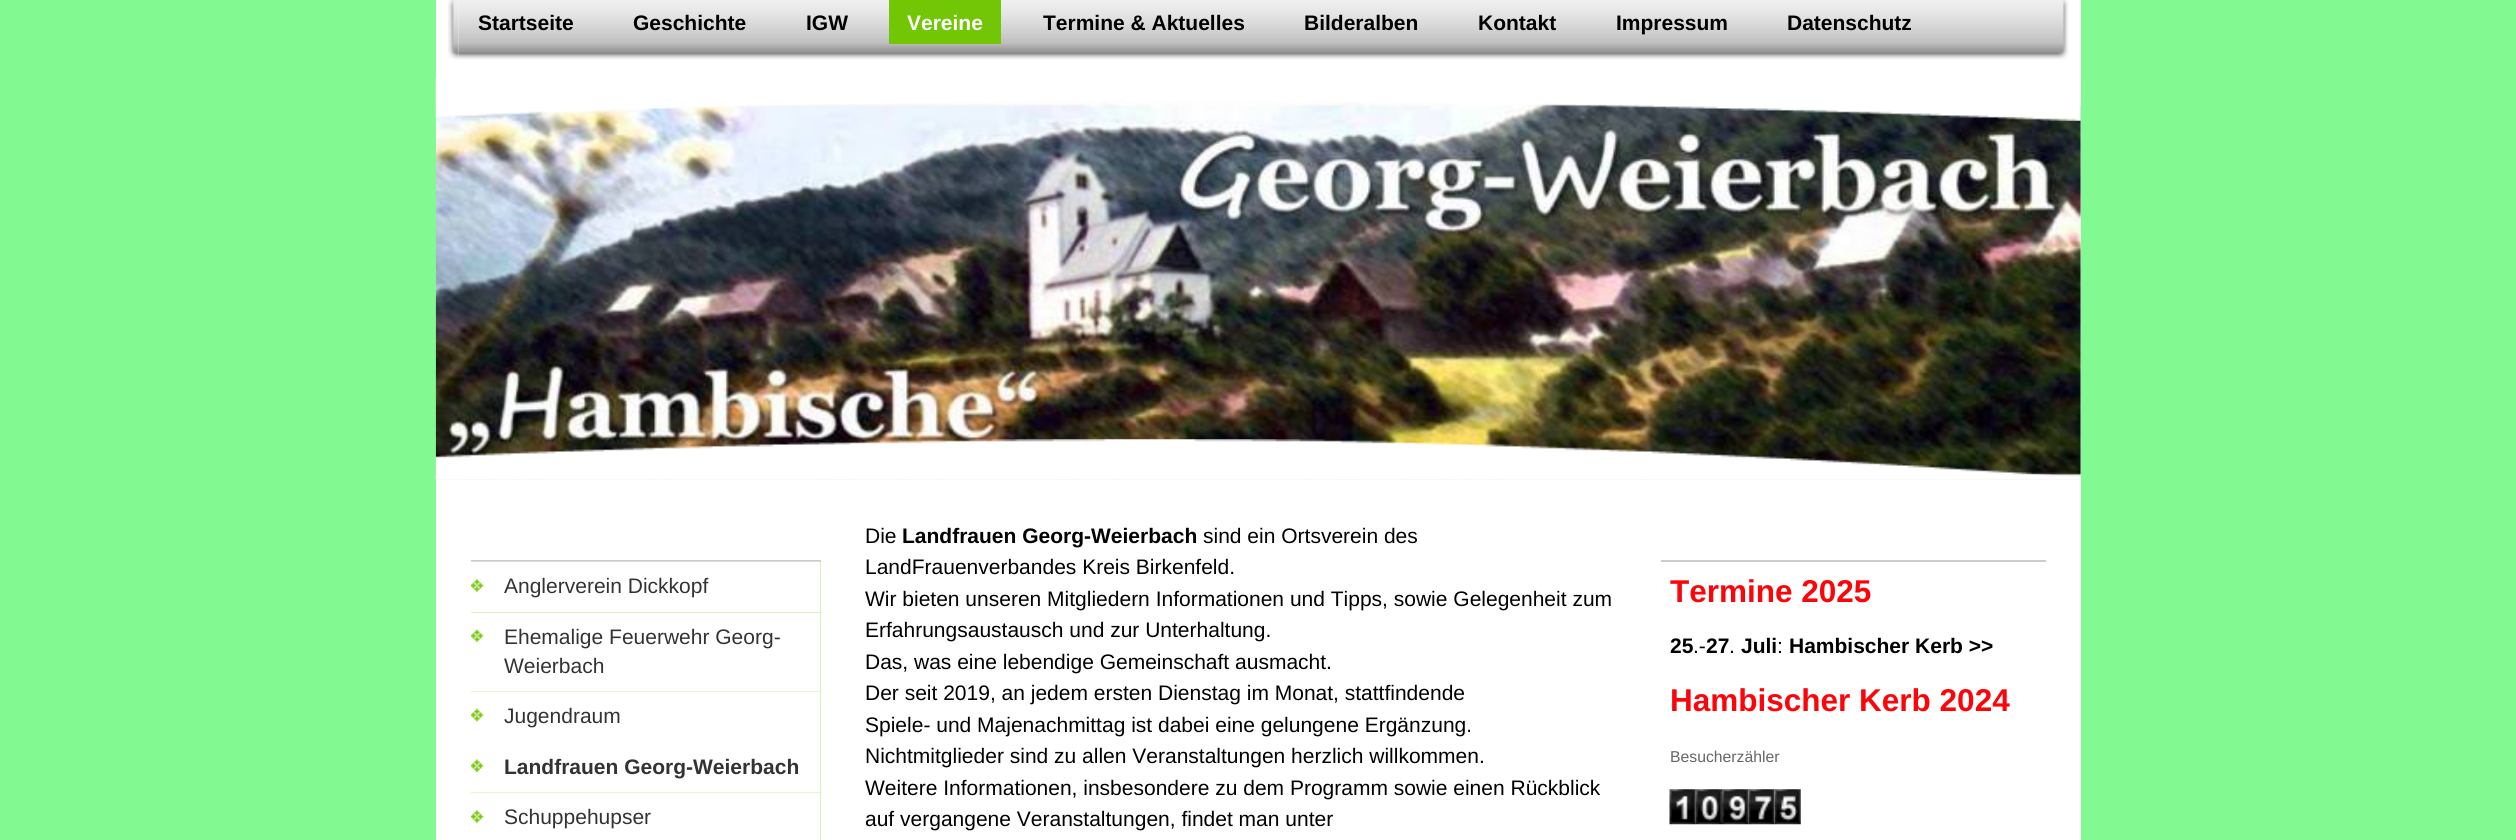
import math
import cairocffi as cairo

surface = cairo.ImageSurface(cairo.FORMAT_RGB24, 2516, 840)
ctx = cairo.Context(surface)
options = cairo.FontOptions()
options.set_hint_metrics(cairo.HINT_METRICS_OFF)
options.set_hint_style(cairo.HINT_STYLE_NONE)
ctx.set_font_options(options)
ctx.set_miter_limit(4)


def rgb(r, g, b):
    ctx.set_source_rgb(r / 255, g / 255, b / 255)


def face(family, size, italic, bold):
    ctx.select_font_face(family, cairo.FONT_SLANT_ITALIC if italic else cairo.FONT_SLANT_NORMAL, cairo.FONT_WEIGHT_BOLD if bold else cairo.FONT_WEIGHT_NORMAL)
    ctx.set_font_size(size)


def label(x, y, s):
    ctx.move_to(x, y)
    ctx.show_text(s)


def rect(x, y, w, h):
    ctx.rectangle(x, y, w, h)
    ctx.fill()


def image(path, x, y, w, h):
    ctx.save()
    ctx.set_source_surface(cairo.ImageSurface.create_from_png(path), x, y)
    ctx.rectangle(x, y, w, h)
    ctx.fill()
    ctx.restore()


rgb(130, 249, 145)
ctx.paint()
rgb(255, 255, 255)
rect(436, 0, 1645, 79)
image('image0.png', 448, 0, 11, 60)
image('image1.png', 458, 0, 1600, 60)
face('Liberation Sans', 21, 0, 1)
rgb(0, 0, 0)
label(478, 30, 'Startseite')
label(633, 30, 'Geschichte')
label(806, 30, 'IGW')
rgb(115, 198, 6)
rect(889, 0, 112, 44)
rgb(255, 255, 255)
label(907, 30, 'Vereine')
rgb(0, 0, 0)
label(1043, 30, 'Termine & Aktuelles')
label(1304, 30, 'Bilderalben')
label(1478, 30, 'Kontakt')
label(1616, 30, 'Impressum')
label(1787, 30, 'Datenschutz')
image('image2.png', 2058, 0, 11, 60)
rgb(238, 238, 238)
rect(436, 79, 1645, 401)
image('image4.png', 435, 79, 1646, 401)
image('image3.png', 435, 78, 1646, 43)
image('image5.png', 435, 439, 1646, 41)
rgb(255, 255, 255)
rect(436, 480, 1645, 360)
rgb(115, 198, 6)
rect(471, 562, 350, 278)
rgb(204, 204, 204)
rect(471, 560, 350, 2)
image('image6.png', 471, 561, 350, 52)
face('Liberation Sans', 21, 0, 0)
rgb(51, 51, 51)
label(504, 593, 'Anglerverein Dickkopf')
image('image7.png', 471, 612, 350, 80)
label(504, 644, 'Ehemalige Feuerwehr Georg-')
label(504, 673, 'Weierbach')
image('image8.png', 471, 691, 350, 51)
label(504, 723, 'Jugendraum')
image('image9.png', 471, 742, 350, 51)
face('Liberation Sans', 21, 0, 1)
label(504, 774, 'Landfrauen Georg-Weierbach')
image('image10.png', 471, 792, 350, 48)
face('Liberation Sans', 21, 0, 0)
label(504, 824, 'Schuppehupser')
rgb(0, 0, 0)
label(865, 543, 'Die')
face('Liberation Sans', 21, 0, 1)
label(902, 543, 'Landfrauen Georg-Weierbach')
face('Liberation Sans', 21, 0, 0)
label(1203, 543, 'sind ein Ortsverein des')
label(865, 574, 'LandFrauenverbandes Kreis Birkenfeld.')
label(865, 606, 'Wir bieten unseren Mitgliedern Informationen und Tipps, sowie Gelegenheit zum')
label(865, 637, 'Erfahrungsaustausch und zur Unterhaltung.')
label(865, 669, 'Das, was eine lebendige Gemeinschaft ausmacht.')
label(865, 700, 'Der seit 2019, an jedem ersten Dienstag im Monat, stattfindende')
label(865, 732, 'Spiele- und Majenachmittag ist dabei eine gelungene Ergänzung.')
label(865, 763, 'Nichtmitglieder sind zu allen Veranstaltungen herzlich willkommen.')
label(865, 795, 'Weitere Informationen, insbesondere zu dem Programm sowie einen Rückblick')
label(865, 826, 'auf vergangene Veranstaltungen, findet man unter')
rgb(204, 204, 204)
rect(1661, 560, 385, 2)
face('Liberation Sans', 31.5, 0, 1)
rgb(253, 4, 10)
label(1670, 602, 'Termine 2025')
face('Liberation Sans', 21, 0, 1)
rgb(0, 0, 0)
label(1670, 653, '25')
face('Liberation Sans', 21, 0, 0)
label(1693, 653, '.-')
face('Liberation Sans', 21, 0, 1)
label(1706, 653, '27')
face('Liberation Sans', 21, 0, 0)
label(1729, 653, '.')
face('Liberation Sans', 21, 0, 1)
label(1741, 653, 'Juli')
face('Liberation Sans', 21, 0, 0)
label(1777, 653, ':')
face('Liberation Sans', 21, 0, 1)
label(1789, 653, 'Hambischer Kerb >>')
face('Liberation Sans', 31.5, 0, 1)
rgb(253, 4, 10)
label(1670, 711, 'Hambischer Kerb 2024')
face('Liberation Sans', 15.75, 0, 0)
rgb(102, 102, 102)
label(1670, 762, 'Besucherzähler')
image('image11.png', 1669, 789, 27, 36)
image('image12.png', 1695, 789, 27, 36)
image('image13.png', 1722, 789, 27, 36)
image('image14.png', 1748, 789, 27, 36)
image('image15.png', 1774, 789, 27, 36)
surface.write_to_png('render.png')
